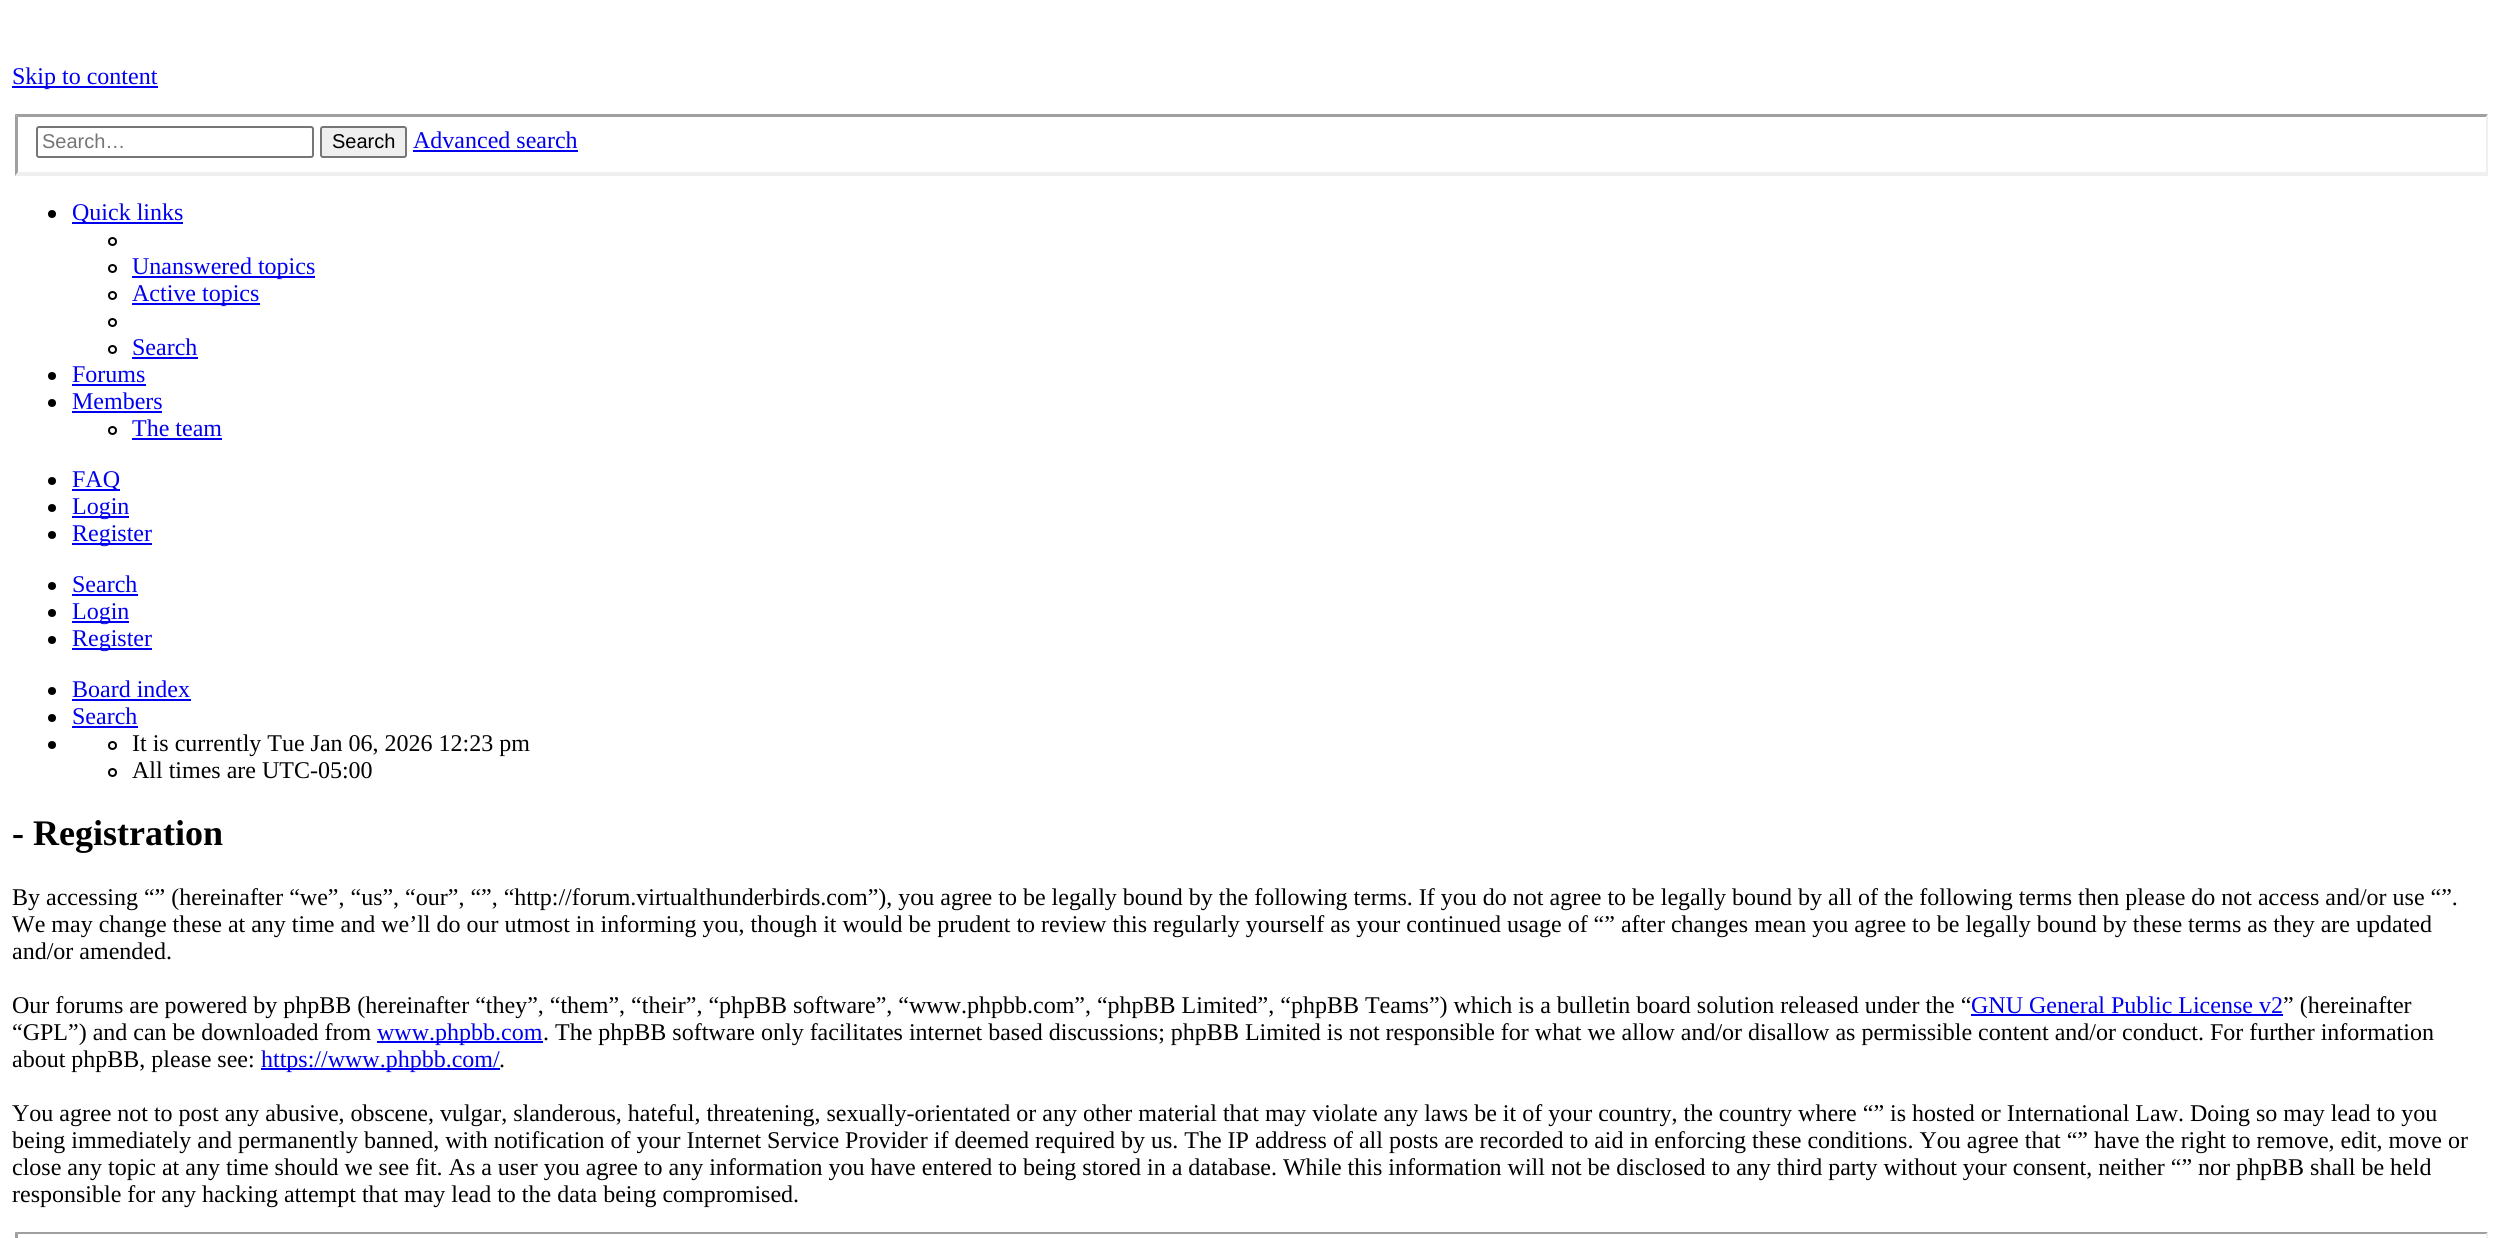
import math
import cairocffi as cairo

surface = cairo.ImageSurface(cairo.FORMAT_RGB24, 2503, 1238)
ctx = cairo.Context(surface)
options = cairo.FontOptions()
options.set_hint_metrics(cairo.HINT_METRICS_OFF)
options.set_hint_style(cairo.HINT_STYLE_NONE)
ctx.set_font_options(options)
ctx.set_miter_limit(4)


def rgb(r, g, b):
    ctx.set_source_rgb(r / 255, g / 255, b / 255)


def face(family, size, italic, bold):
    ctx.select_font_face(family, cairo.FONT_SLANT_ITALIC if italic else cairo.FONT_SLANT_NORMAL, cairo.FONT_WEIGHT_BOLD if bold else cairo.FONT_WEIGHT_NORMAL)
    ctx.set_font_size(size)


def label(x, y, s):
    ctx.move_to(x, y)
    ctx.show_text(s)


def rect(x, y, w, h):
    ctx.rectangle(x, y, w, h)
    ctx.fill()


def rrect(x, y, w, h, r):
    ctx.new_sub_path()
    for i, (u, v) in enumerate([(x + w - r, y + h - r), (x + r, y + h - r), (x + r, y + r), (x + w - r, y + r)]):
        ctx.arc(u, v, r, i * math.pi / 2, (i + 1) * math.pi / 2)
    ctx.close_path()


rgb(255, 255, 255)
ctx.paint()
rgb(0, 0, 238)
rect(12, 86, 146, 2)
face('Liberation Serif', 24, 0, 0)
label(12, 84, 'Skip to content')
rgb(159, 159, 159)
ctx.new_path()
ctx.move_to(15, 114)
ctx.line_to(2488, 114)
ctx.line_to(2486, 117)
ctx.line_to(18, 117)
ctx.close_path()
ctx.fill()
rgb(239, 239, 239)
ctx.new_path()
ctx.move_to(2488, 114)
ctx.line_to(2488, 176)
ctx.line_to(2486, 172)
ctx.line_to(2486, 117)
ctx.close_path()
ctx.fill()
ctx.new_path()
ctx.move_to(2488, 176)
ctx.line_to(15, 176)
ctx.line_to(18, 172)
ctx.line_to(2486, 172)
ctx.close_path()
ctx.fill()
rgb(159, 159, 159)
ctx.new_path()
ctx.move_to(15, 176)
ctx.line_to(15, 114)
ctx.line_to(18, 117)
ctx.line_to(18, 172)
ctx.close_path()
ctx.fill()
rrect(37, 127, 276, 30, 2)
rgb(118, 118, 118)
ctx.stroke()
face('Liberation Sans', 20, 0, 0)
rgb(117, 117, 117)
label(42, 148, 'Search…')
rgb(239, 239, 239)
rrect(321, 127, 85, 30, 2)
ctx.fill_preserve()
rgb(118, 118, 118)
ctx.stroke()
rgb(0, 0, 0)
label(332, 148, 'Search')
face('Liberation Serif', 24, 0, 0)
rgb(0, 0, 238)
label(413, 148, 'Advanced search')
rect(413, 150, 165, 2)
rgb(0, 0, 0)
ctx.new_path()
ctx.arc(52, 214, 4, 0, 2 * math.pi)
ctx.fill()
rgb(0, 0, 238)
rect(72, 222, 111, 2)
label(72, 220, 'Quick links')
ctx.new_path()
ctx.arc(112.5, 241.5, 3.5, 0, 2 * math.pi)
rgb(0, 0, 0)
ctx.stroke()
ctx.arc(112.5, 268.5, 3.5, 0, 2 * math.pi)
ctx.stroke()
rgb(0, 0, 238)
rect(132, 276, 183, 2)
label(132, 274, 'Unanswered topics')
ctx.new_path()
ctx.arc(112.5, 295.5, 3.5, 0, 2 * math.pi)
rgb(0, 0, 0)
ctx.stroke()
rgb(0, 0, 238)
rect(132, 303, 128, 2)
label(132, 301, 'Active topics')
ctx.new_path()
ctx.arc(112.5, 322.5, 3.5, 0, 2 * math.pi)
rgb(0, 0, 0)
ctx.stroke()
ctx.arc(112.5, 349.5, 3.5, 0, 2 * math.pi)
ctx.stroke()
rgb(0, 0, 238)
label(132, 355, 'Search')
rect(132, 357, 66, 2)
rgb(0, 0, 0)
ctx.new_path()
ctx.arc(52, 376, 4, 0, 2 * math.pi)
ctx.fill()
rgb(0, 0, 238)
label(72, 382, 'Forums')
rect(72, 384, 74, 2)
rgb(0, 0, 0)
ctx.new_path()
ctx.arc(52, 403, 4, 0, 2 * math.pi)
ctx.fill()
rgb(0, 0, 238)
label(72, 409, 'Members')
rect(72, 411, 90, 2)
ctx.new_path()
ctx.arc(112.5, 430.5, 3.5, 0, 2 * math.pi)
rgb(0, 0, 0)
ctx.stroke()
rgb(0, 0, 238)
label(132, 436, 'The team')
rect(132, 438, 90, 2)
rgb(0, 0, 0)
ctx.new_path()
ctx.arc(52, 481, 4, 0, 2 * math.pi)
ctx.fill()
rgb(0, 0, 238)
rect(72, 489, 48, 2)
label(72, 487, 'FAQ')
rgb(0, 0, 0)
ctx.new_path()
ctx.arc(52, 508, 4, 0, 2 * math.pi)
ctx.fill()
rgb(0, 0, 238)
rect(72, 516, 57, 2)
label(72, 514, 'Login')
rgb(0, 0, 0)
ctx.new_path()
ctx.arc(52, 535, 4, 0, 2 * math.pi)
ctx.fill()
rgb(0, 0, 238)
rect(72, 543, 80, 2)
label(72, 541, 'Register')
rgb(0, 0, 0)
ctx.new_path()
ctx.arc(52, 586, 4, 0, 2 * math.pi)
ctx.fill()
rgb(0, 0, 238)
label(72, 592, 'Search')
rect(72, 594, 66, 2)
rgb(0, 0, 0)
ctx.new_path()
ctx.arc(52, 613, 4, 0, 2 * math.pi)
ctx.fill()
rgb(0, 0, 238)
rect(72, 621, 57, 2)
label(72, 619, 'Login')
rgb(0, 0, 0)
ctx.new_path()
ctx.arc(52, 640, 4, 0, 2 * math.pi)
ctx.fill()
rgb(0, 0, 238)
rect(72, 648, 80, 2)
label(72, 646, 'Register')
rgb(0, 0, 0)
ctx.new_path()
ctx.arc(52, 691, 4, 0, 2 * math.pi)
ctx.fill()
rgb(0, 0, 238)
label(72, 697, 'Board index')
rect(72, 699, 119, 2)
rgb(0, 0, 0)
ctx.new_path()
ctx.arc(52, 718, 4, 0, 2 * math.pi)
ctx.fill()
rgb(0, 0, 238)
label(72, 724, 'Search')
rect(72, 726, 66, 2)
rgb(0, 0, 0)
ctx.new_path()
ctx.arc(52, 745, 4, 0, 2 * math.pi)
ctx.fill()
ctx.arc(112.5, 745.5, 3.5, 0, 2 * math.pi)
ctx.stroke()
label(132, 751, 'It is currently Tue Jan 06, 2026 12:23 pm')
ctx.new_path()
ctx.arc(112.5, 772.5, 3.5, 0, 2 * math.pi)
ctx.stroke()
label(132, 778, 'All times are UTC-05:00')
face('Liberation Serif', 36, 0, 1)
label(12, 845, '- Registration')
face('Liberation Serif', 24, 0, 0)
label(12, 905, 'By accessing “” (hereinafter “we”, “us”, “our”, “”, “http://forum.virtualthunderbirds.com”), you agree to be legally bound by the following terms. If you do not agree to be legally bound by all of the following terms then please do not access and/or use “”.')
label(12, 932, 'We may change these at any time and we’ll do our utmost in informing you, though it would be prudent to review this regularly yourself as your continued usage of “” after changes mean you agree to be legally bound by these terms as they are updated')
label(12, 959, 'and/or amended.')
label(12, 1013, 'Our forums are powered by phpBB (hereinafter “they”, “them”, “their”, “phpBB software”, “www.phpbb.com”, “phpBB Limited”, “phpBB Teams”) which is a bulletin board solution released under the “')
rgb(0, 0, 238)
label(1971, 1013, 'GNU General Public License v2')
rect(1971, 1014, 312, 2)
rgb(0, 0, 0)
label(2283, 1013, '” (hereinafter')
label(12, 1040, '“GPL”) and can be downloaded from')
rgb(0, 0, 238)
rect(377, 1041, 166, 2)
label(377, 1040, 'www.phpbb.com')
rgb(0, 0, 0)
label(543, 1040, '. The phpBB software only facilitates internet based discussions; phpBB Limited is not responsible for what we allow and/or disallow as permissible content and/or conduct. For further information')
label(12, 1067, 'about phpBB, please see:')
rgb(0, 0, 238)
rect(261, 1068, 239, 2)
label(261, 1067, 'https://www.phpbb.com/')
rgb(0, 0, 0)
label(499, 1067, '.')
label(12, 1121, 'You agree not to post any abusive, obscene, vulgar, slanderous, hateful, threatening, sexually-orientated or any other material that may violate any laws be it of your country, the country where “” is hosted or International Law. Doing so may lead to you')
label(12, 1148, 'being immediately and permanently banned, with notification of your Internet Service Provider if deemed required by us. The IP address of all posts are recorded to aid in enforcing these conditions. You agree that “” have the right to remove, edit, move or')
label(12, 1175, 'close any topic at any time should we see fit. As a user you agree to any information you have entered to being stored in a database. While this information will not be disclosed to any third party without your consent, neither “” nor phpBB shall be held')
label(12, 1202, 'responsible for any hacking attempt that may lead to the data being compromised.')
rgb(159, 159, 159)
ctx.new_path()
ctx.move_to(15, 1232)
ctx.line_to(2488, 1232)
ctx.line_to(2486, 1234)
ctx.line_to(18, 1234)
ctx.close_path()
ctx.fill()
rgb(239, 239, 239)
ctx.new_path()
ctx.move_to(2488, 1232)
ctx.line_to(2488, 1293)
ctx.line_to(2486, 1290)
ctx.line_to(2486, 1234)
ctx.close_path()
ctx.fill()
rgb(159, 159, 159)
ctx.new_path()
ctx.move_to(15, 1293)
ctx.line_to(15, 1232)
ctx.line_to(18, 1234)
ctx.line_to(18, 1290)
ctx.close_path()
ctx.fill()
surface.write_to_png('render.png')
